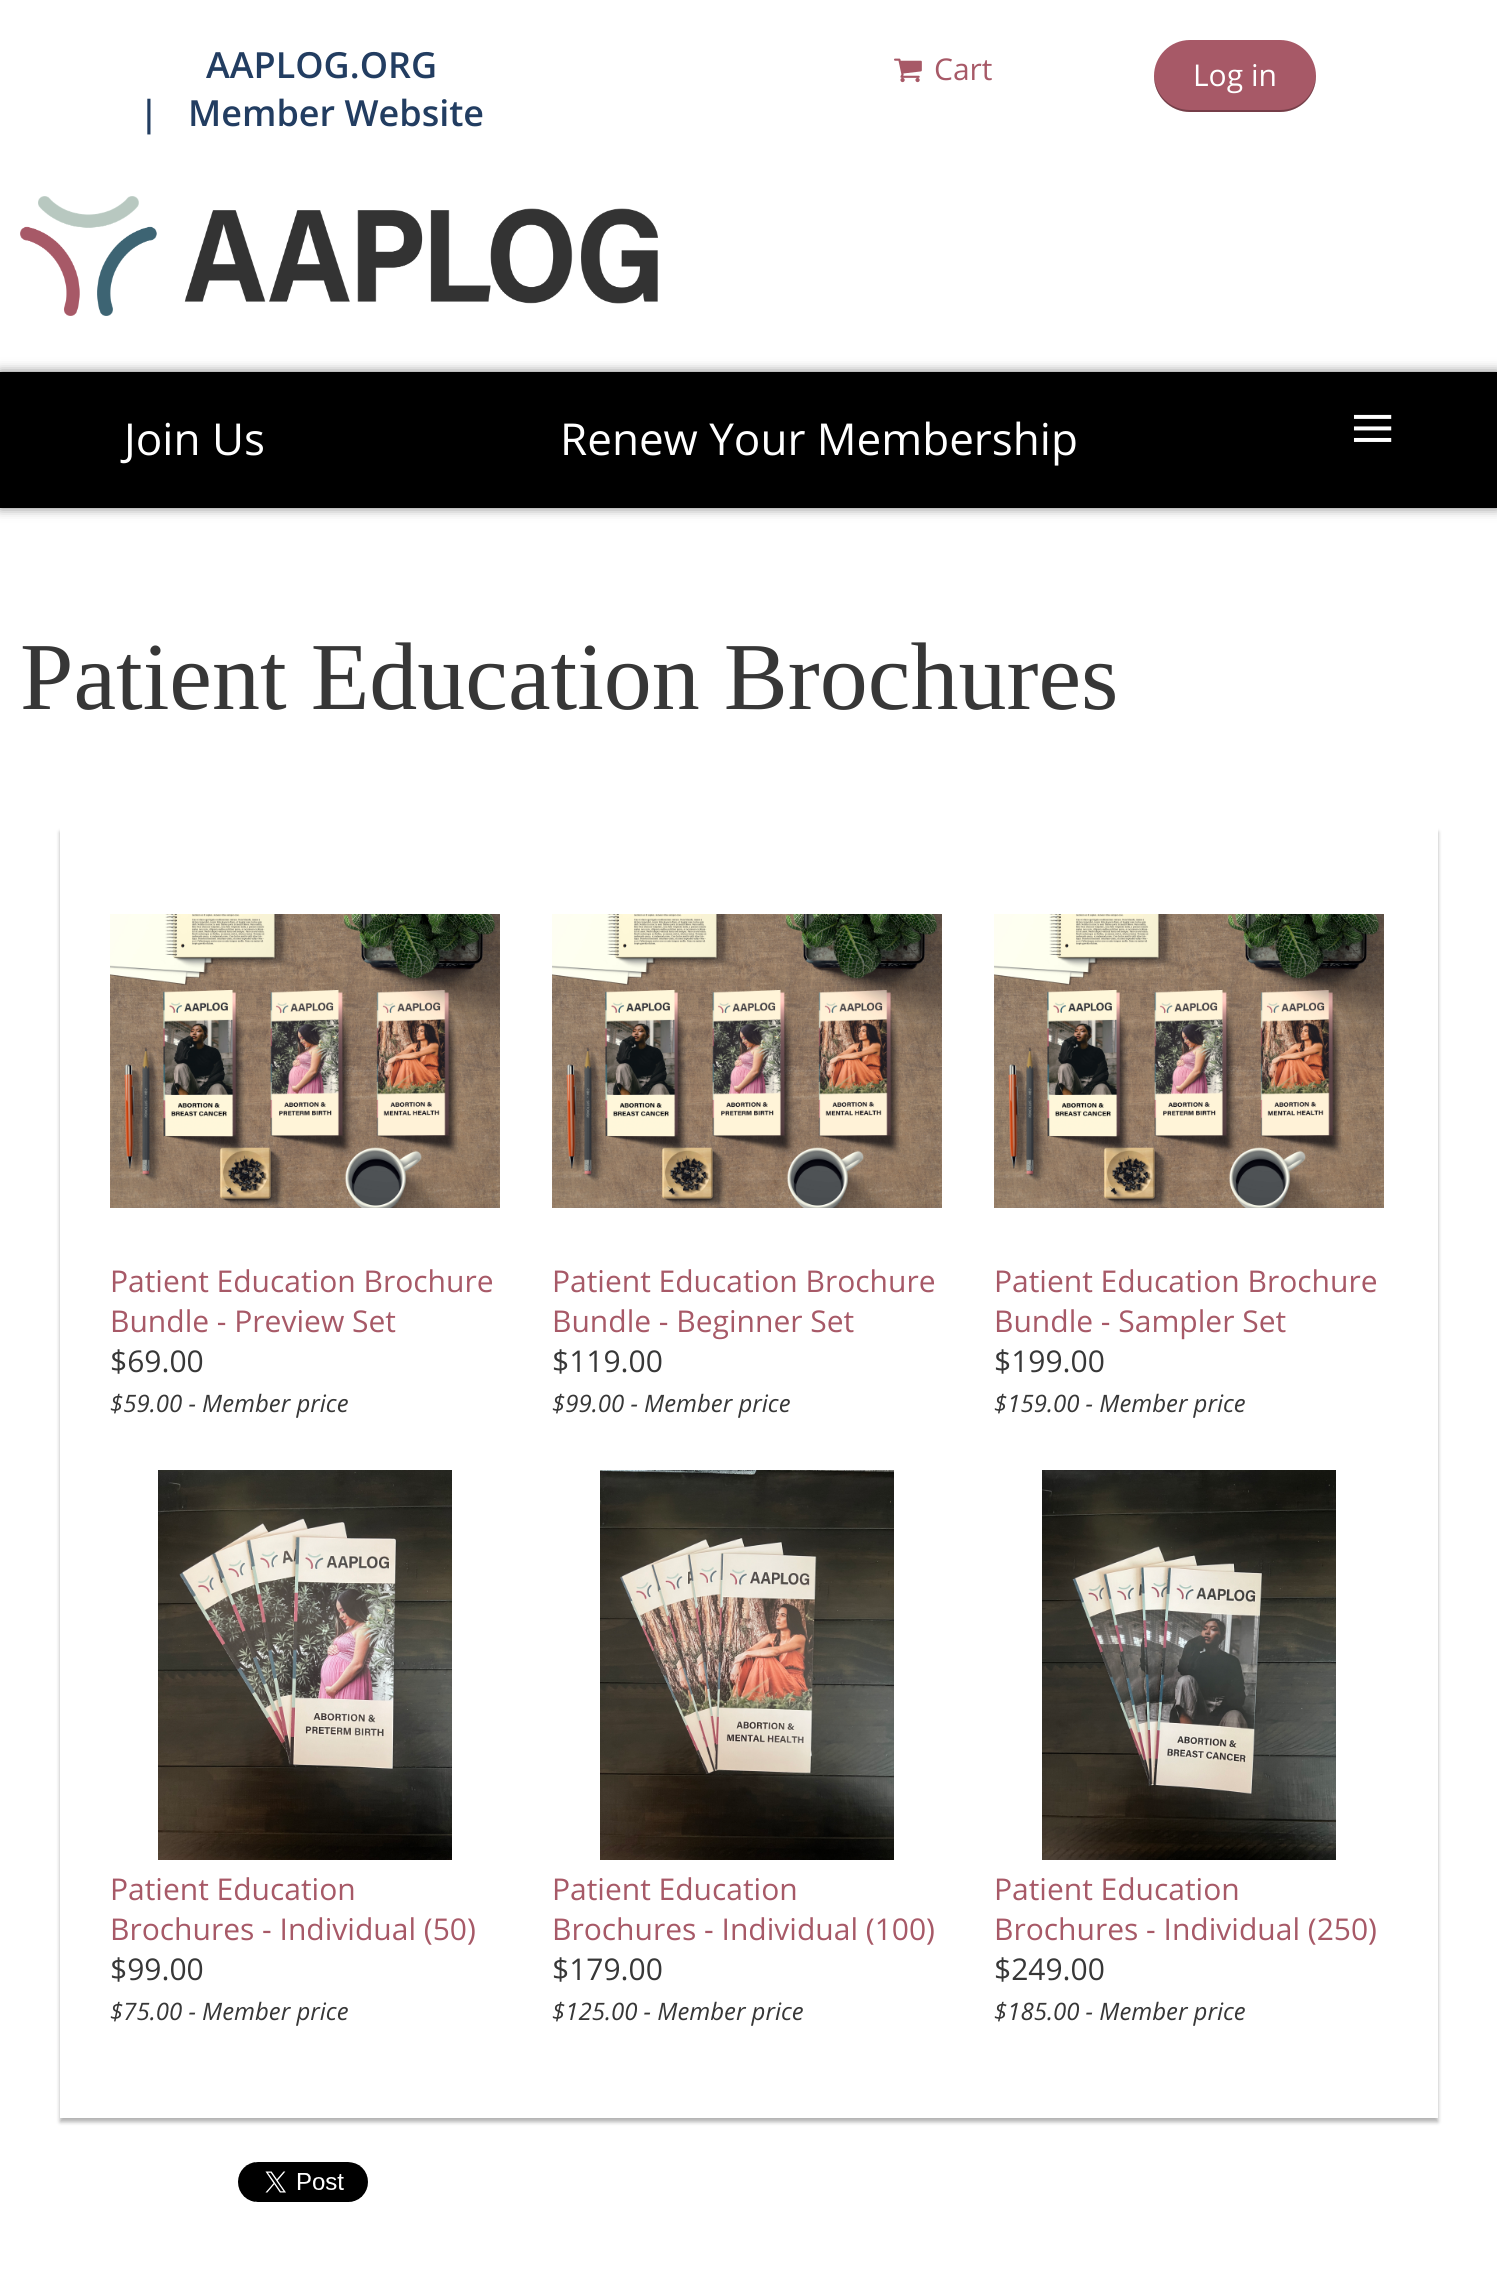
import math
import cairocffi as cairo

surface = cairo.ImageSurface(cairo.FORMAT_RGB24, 1497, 2290)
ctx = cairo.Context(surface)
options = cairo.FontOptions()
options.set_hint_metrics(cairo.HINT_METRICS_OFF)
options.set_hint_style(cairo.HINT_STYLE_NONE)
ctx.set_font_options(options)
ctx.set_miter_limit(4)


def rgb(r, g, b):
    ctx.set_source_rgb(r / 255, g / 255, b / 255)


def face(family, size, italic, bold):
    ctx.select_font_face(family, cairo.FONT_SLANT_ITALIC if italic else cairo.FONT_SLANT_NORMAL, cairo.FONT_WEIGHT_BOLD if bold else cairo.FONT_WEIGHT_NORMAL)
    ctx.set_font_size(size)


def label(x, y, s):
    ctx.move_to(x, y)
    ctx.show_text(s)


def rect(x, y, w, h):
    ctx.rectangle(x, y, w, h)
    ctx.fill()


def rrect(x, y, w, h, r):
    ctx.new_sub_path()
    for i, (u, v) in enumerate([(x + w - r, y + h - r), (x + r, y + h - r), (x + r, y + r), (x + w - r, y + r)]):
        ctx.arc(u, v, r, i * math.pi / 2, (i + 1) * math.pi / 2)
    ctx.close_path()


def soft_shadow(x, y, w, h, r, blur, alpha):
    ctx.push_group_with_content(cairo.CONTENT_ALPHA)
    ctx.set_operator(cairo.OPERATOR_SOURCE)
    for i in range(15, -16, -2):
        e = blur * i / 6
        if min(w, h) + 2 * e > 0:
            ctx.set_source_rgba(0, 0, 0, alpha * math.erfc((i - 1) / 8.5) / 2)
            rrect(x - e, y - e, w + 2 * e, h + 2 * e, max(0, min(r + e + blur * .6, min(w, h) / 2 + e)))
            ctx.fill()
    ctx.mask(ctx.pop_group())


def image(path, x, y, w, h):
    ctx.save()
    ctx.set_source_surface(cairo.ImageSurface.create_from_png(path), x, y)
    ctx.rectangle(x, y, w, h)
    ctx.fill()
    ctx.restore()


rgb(255, 255, 255)
ctx.paint()
face('Open Sans SemiBold', 36, 0, 0)
rgb(34, 61, 97)
label(206, 78, 'AAPLOG.ORG')
label(139, 126, '|')
label(188, 126, 'Member Website')
image('image0.png', 894, 58, 28, 25)
face('Open Sans', 30, 0, 0)
rgb(167, 89, 103)
label(934, 80, 'Cart')
rrect(1154, 40, 162, 72, 36)
ctx.fill()
ctx.set_source_rgba(0, 0, 0, 0.3)
ctx.new_path()
ctx.move_to(1154, 75)
ctx.line_to(1154, 76)
ctx.curve_to(1154, 96, 1170, 112, 1190, 112)
ctx.line_to(1280, 112)
ctx.curve_to(1300, 112, 1316, 96, 1316, 76)
ctx.line_to(1316, 75)
ctx.curve_to(1315, 95, 1300, 110, 1280, 110)
ctx.line_to(1190, 110)
ctx.curve_to(1170, 110, 1155, 95, 1154, 75)
ctx.close_path()
ctx.fill()
rgb(255, 255, 255)
label(1193, 86, 'Log in')
image('image1.png', 20, 196, 638, 120)
rgb(0, 0, 0)
soft_shadow(0, 372, 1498, 136, 0, 6, 0.5)
rgb(0, 0, 0)
rect(0, 372, 1497, 136)
face('Open Sans', 44, 0, 0)
rgb(255, 255, 255)
label(124, 455, 'Join Us')
label(560, 455, 'Renew Your Membership')
face('Liberation Serif', 80, 0, 0)
label(1350, 455, '≡')
face('Liberation Serif', 96, 0, 0)
rgb(55, 55, 55)
label(20, 709, 'Patient Education Brochures')
ctx.save()
ctx.set_fill_rule(cairo.FILL_RULE_EVEN_ODD)
ctx.new_path()
ctx.move_to(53, 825)
ctx.line_to(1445, 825)
ctx.line_to(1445, 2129)
ctx.line_to(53, 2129)
ctx.close_path()
ctx.move_to(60, 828)
ctx.line_to(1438, 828)
ctx.line_to(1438, 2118)
ctx.line_to(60, 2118)
ctx.close_path()
ctx.clip()
rgb(0, 0, 0)
soft_shadow(60, 832, 1378, 1290, 0, 2, 0.3)
ctx.restore()
image('image2.png', 110, 914, 390, 294)
face('Open Sans', 30, 0, 0)
rgb(167, 89, 103)
label(110, 1292, 'Patient Education Brochure')
label(110, 1332, 'Bundle - Preview Set')
rgb(55, 55, 55)
label(110, 1372, '$69.00')
face('Open Sans', 24, 1, 0)
label(110, 1412, '$59.00 - Member price')
image('image3.png', 552, 914, 390, 294)
face('Open Sans', 30, 0, 0)
rgb(167, 89, 103)
label(552, 1292, 'Patient Education Brochure')
label(552, 1332, 'Bundle - Beginner Set')
rgb(55, 55, 55)
label(552, 1372, '$119.00')
face('Open Sans', 24, 1, 0)
label(552, 1412, '$99.00 - Member price')
image('image4.png', 994, 914, 390, 294)
face('Open Sans', 30, 0, 0)
rgb(167, 89, 103)
label(994, 1292, 'Patient Education Brochure')
label(994, 1332, 'Bundle - Sampler Set')
rgb(55, 55, 55)
label(994, 1372, '$199.00')
face('Open Sans', 24, 1, 0)
label(994, 1412, '$159.00 - Member price')
image('image5.png', 158, 1470, 294, 390)
face('Open Sans', 30, 0, 0)
rgb(167, 89, 103)
label(110, 1900, 'Patient Education')
label(110, 1940, 'Brochures - Individual (50)')
rgb(55, 55, 55)
label(110, 1980, '$99.00')
face('Open Sans', 24, 1, 0)
label(110, 2020, '$75.00 - Member price')
image('image6.png', 600, 1470, 294, 390)
face('Open Sans', 30, 0, 0)
rgb(167, 89, 103)
label(552, 1900, 'Patient Education')
label(552, 1940, 'Brochures - Individual (100)')
rgb(55, 55, 55)
label(552, 1980, '$179.00')
face('Open Sans', 24, 1, 0)
label(552, 2020, '$125.00 - Member price')
image('image7.png', 1042, 1470, 294, 390)
face('Open Sans', 30, 0, 0)
rgb(167, 89, 103)
label(994, 1900, 'Patient Education')
label(994, 1940, 'Brochures - Individual (250)')
rgb(55, 55, 55)
label(994, 1980, '$249.00')
face('Open Sans', 24, 1, 0)
label(994, 2020, '$185.00 - Member price')
image('image8.png', 238, 2162, 130, 40)
surface.write_to_png('render.png')
